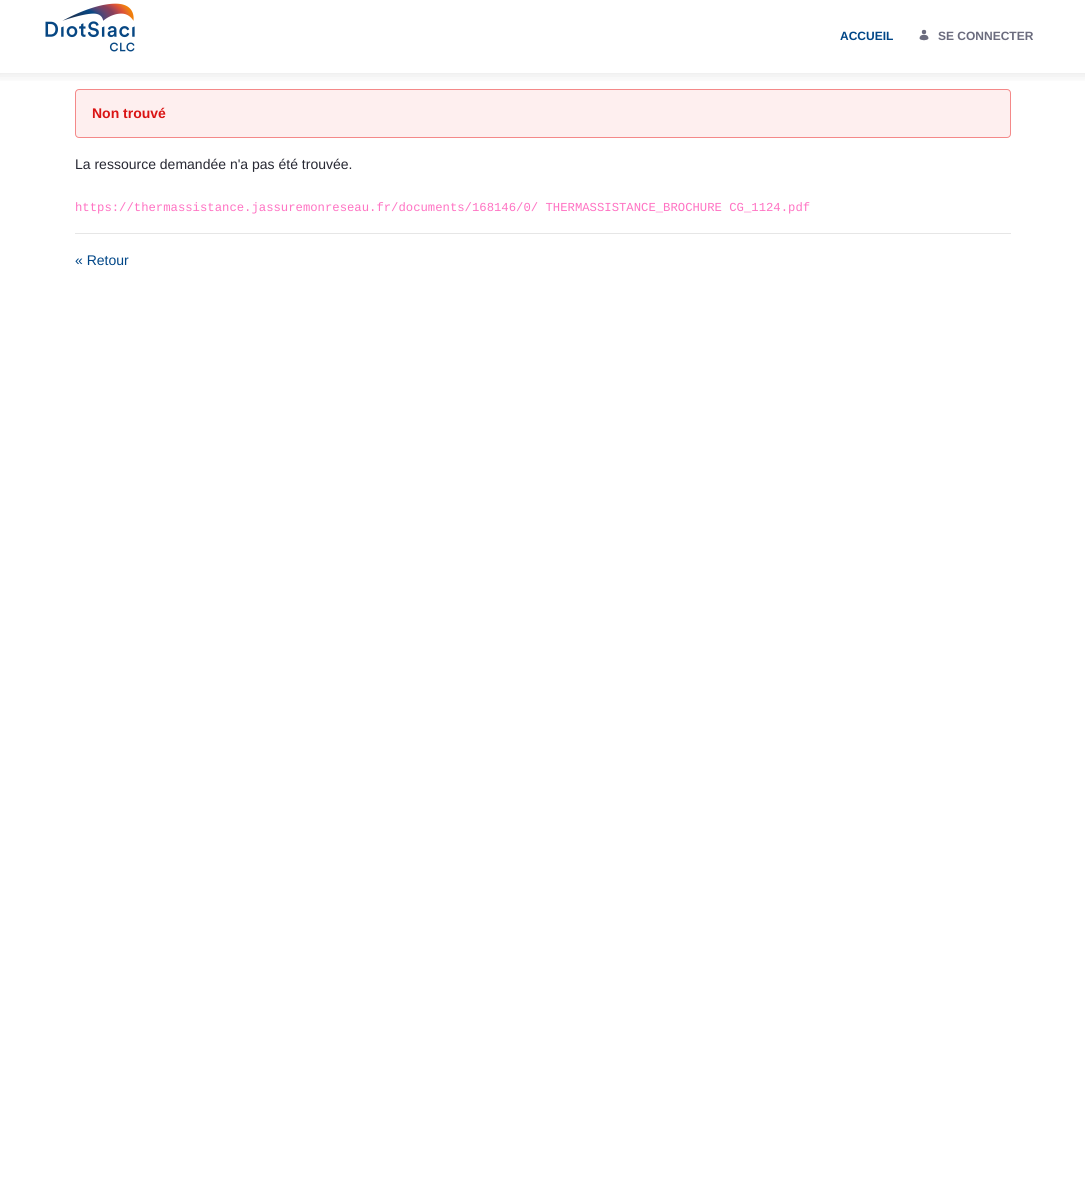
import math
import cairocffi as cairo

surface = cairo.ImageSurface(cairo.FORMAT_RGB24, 1085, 1199)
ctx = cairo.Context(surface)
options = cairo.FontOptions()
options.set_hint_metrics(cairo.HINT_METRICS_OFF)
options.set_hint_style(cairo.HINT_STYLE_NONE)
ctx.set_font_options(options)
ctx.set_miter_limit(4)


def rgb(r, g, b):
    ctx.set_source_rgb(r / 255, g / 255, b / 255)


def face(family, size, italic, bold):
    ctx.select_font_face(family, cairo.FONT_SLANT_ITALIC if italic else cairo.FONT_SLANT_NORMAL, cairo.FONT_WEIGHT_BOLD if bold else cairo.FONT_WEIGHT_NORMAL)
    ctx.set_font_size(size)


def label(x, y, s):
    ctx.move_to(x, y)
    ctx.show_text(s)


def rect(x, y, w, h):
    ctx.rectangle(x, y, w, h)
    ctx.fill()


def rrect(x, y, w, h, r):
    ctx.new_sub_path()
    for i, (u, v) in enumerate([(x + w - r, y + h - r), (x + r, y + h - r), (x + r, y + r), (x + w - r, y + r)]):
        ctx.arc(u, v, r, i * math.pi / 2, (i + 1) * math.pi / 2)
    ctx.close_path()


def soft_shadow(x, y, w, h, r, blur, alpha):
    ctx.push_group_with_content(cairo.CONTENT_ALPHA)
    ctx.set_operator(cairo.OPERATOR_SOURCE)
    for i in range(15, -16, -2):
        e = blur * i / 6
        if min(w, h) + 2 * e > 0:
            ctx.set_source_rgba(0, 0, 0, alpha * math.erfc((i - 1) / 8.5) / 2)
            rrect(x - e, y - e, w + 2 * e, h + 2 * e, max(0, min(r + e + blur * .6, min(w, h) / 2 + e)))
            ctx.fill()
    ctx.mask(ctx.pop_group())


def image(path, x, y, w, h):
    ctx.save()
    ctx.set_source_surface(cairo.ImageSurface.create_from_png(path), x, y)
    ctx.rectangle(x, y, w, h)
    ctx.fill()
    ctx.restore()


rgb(255, 255, 255)
ctx.paint()
ctx.save()
ctx.rectangle(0, 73, 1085, 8)
ctx.clip()
rgb(0, 0, 0)
soft_shadow(-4, -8, 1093, 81, 0, 8, 0.12)
ctx.restore()
image('image0.png', 45, 3, 90, 49)
face('Liberation Sans', 12, 0, 1)
rgb(0, 70, 135)
label(840, 40, 'ACCUEIL')
image('image1.png', 919, 29, 10, 12)
rgb(107, 108, 126)
label(938, 40, 'SE CONNECTER')
rgb(254, 239, 239)
rrect(75.5, 89.5, 935, 48, 3.5)
ctx.fill_preserve()
rgb(244, 137, 137)
ctx.set_line_width(1)
ctx.stroke()
face('Liberation Sans', 14, 0, 1)
rgb(218, 20, 20)
label(92, 118, 'Non trouvé')
face('Liberation Sans', 14, 0, 0)
rgb(39, 40, 51)
label(75, 169, 'La ressource demandée n\'a pas été trouvée.')
face('Liberation Mono', 12.25, 0, 0)
rgb(255, 115, 195)
label(75, 211, 'https://thermassistance.jassuremonreseau.fr/documents/168146/0/ THERMASSISTANCE_BROCHURE CG_1124.pdf')
rgb(230, 230, 230)
rect(75, 233, 936, 1)
face('Liberation Sans', 14, 0, 0)
rgb(0, 70, 135)
label(75, 265, '« Retour')
surface.write_to_png('render.png')
